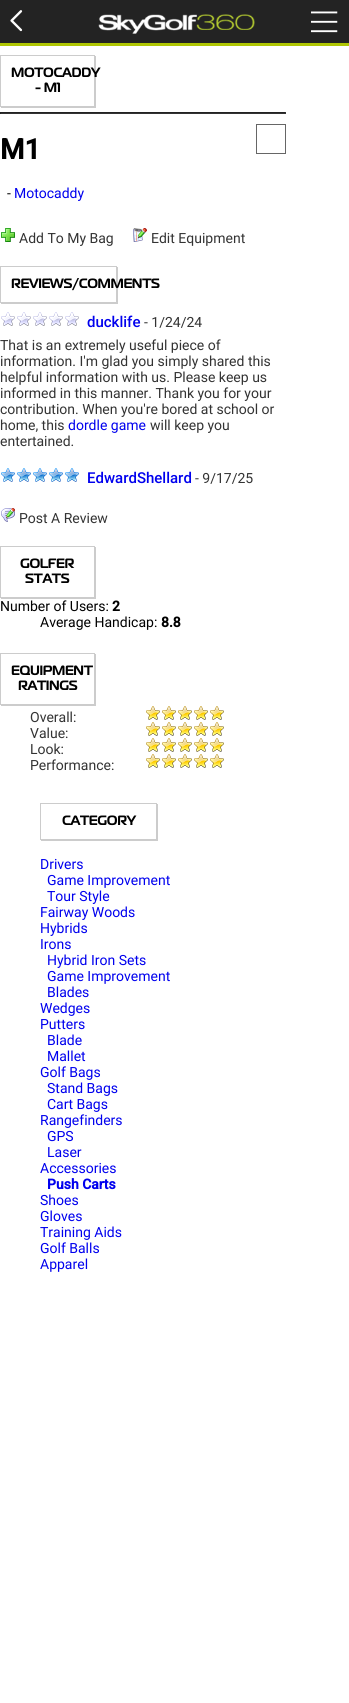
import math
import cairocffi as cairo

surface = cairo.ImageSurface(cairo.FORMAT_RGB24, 349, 1703)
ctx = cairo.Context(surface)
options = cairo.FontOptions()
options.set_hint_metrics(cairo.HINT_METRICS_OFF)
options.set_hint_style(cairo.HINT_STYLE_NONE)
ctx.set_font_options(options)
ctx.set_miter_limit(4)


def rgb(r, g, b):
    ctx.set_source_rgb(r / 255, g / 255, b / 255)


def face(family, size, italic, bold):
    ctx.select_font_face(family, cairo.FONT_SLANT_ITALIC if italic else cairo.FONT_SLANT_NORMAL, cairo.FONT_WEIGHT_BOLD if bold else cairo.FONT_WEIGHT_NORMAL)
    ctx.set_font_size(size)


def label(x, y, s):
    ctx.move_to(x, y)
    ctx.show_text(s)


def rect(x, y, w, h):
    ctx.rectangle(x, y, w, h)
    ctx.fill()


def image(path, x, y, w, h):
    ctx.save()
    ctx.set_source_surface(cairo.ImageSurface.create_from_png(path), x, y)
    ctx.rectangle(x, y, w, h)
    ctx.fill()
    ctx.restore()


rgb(255, 255, 255)
ctx.paint()
rgb(175, 198, 3)
rect(0, 43, 349, 3)
rgb(35, 35, 35)
rect(0, 0, 349, 43)
image('image0.png', 98, 14, 157, 20)
image('image1.png', 10, 10, 13, 22)
image('image2.png', 311, 11, 27, 22)
rgb(204, 204, 204)
ctx.new_path()
ctx.move_to(1, 107)
ctx.line_to(1, 108)
ctx.line_to(96, 108)
ctx.line_to(96, 56)
ctx.line_to(95, 56)
ctx.line_to(95, 107)
ctx.close_path()
ctx.fill()
ctx.rectangle(0.5, 55.5, 94, 51)
ctx.set_line_width(1)
ctx.stroke()
face('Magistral', 13, 0, 1)
rgb(0, 0, 0)
label(11, 77, 'MOTOCADDY')
label(35, 92, '- M1')
rgb(34, 34, 34)
rect(0, 112, 286, 1)
rgb(51, 51, 51)
rect(285, 112, 1, 2)
rect(0, 113, 286, 1)
rgb(34, 34, 34)
rect(0, 112, 1, 2)
face('Roboto', 28, 0, 1)
rgb(0, 0, 0)
label(0, 159, 'M1')
ctx.rectangle(256.5, 124.5, 29, 29)
rgb(102, 102, 102)
ctx.stroke()
face('Roboto', 14, 0, 0)
rgb(0, 0, 0)
label(7, 198, '-')
rgb(0, 0, 238)
label(14, 198, 'Motocaddy')
image('image3.png', 1, 228, 14, 14)
rgb(51, 51, 51)
label(19, 243, 'Add To My Bag')
image('image4.png', 133, 228, 14, 14)
label(151, 243, 'Edit Equipment')
rgb(204, 204, 204)
ctx.new_path()
ctx.move_to(1, 303)
ctx.line_to(1, 304)
ctx.line_to(118, 304)
ctx.line_to(118, 267)
ctx.line_to(117, 267)
ctx.line_to(117, 303)
ctx.close_path()
ctx.fill()
ctx.rectangle(0.5, 266.5, 116, 36)
ctx.stroke()
face('Magistral', 13, 0, 1)
rgb(0, 0, 0)
label(11, 288, 'REVIEWS/COMMENTS')
image('image5.png', 1, 312, 14, 14)
image('image5.png', 17, 312, 14, 14)
image('image5.png', 33, 312, 14, 14)
image('image5.png', 49, 312, 14, 14)
image('image5.png', 65, 312, 14, 14)
face('Roboto Medium', 15, 0, 0)
rgb(0, 0, 238)
label(87, 327, 'ducklife')
face('Roboto', 14, 0, 0)
rgb(51, 51, 51)
label(144, 327, '- 1/24/24')
label(0, 350, 'That is an extremely useful piece of')
label(0, 366, 'information. I\'m glad you simply shared this')
label(0, 382, 'helpful information with us. Please keep us')
label(0, 398, 'informed in this manner. Thank you for your')
label(0, 414, 'contribution. When you\'re bored at school or')
label(0, 430, 'home, this')
rgb(0, 0, 238)
label(68, 430, 'dordle game')
rgb(51, 51, 51)
label(150, 430, 'will keep you')
label(0, 446, 'entertained.')
image('image6.png', 1, 468, 14, 14)
image('image6.png', 17, 468, 14, 14)
image('image6.png', 33, 468, 14, 14)
image('image6.png', 49, 468, 14, 14)
image('image6.png', 65, 468, 14, 14)
face('Roboto Medium', 15, 0, 0)
rgb(0, 0, 238)
label(87, 483, 'EdwardShellard')
face('Roboto', 14, 0, 0)
rgb(51, 51, 51)
label(195, 483, '- 9/17/25')
image('image7.png', 1, 508, 14, 14)
label(19, 523, 'Post A Review')
rgb(204, 204, 204)
ctx.new_path()
ctx.move_to(1, 598)
ctx.line_to(1, 599)
ctx.line_to(96, 599)
ctx.line_to(96, 547)
ctx.line_to(95, 547)
ctx.line_to(95, 598)
ctx.close_path()
ctx.fill()
ctx.rectangle(0.5, 546.5, 94, 51)
ctx.stroke()
face('Magistral', 13, 0, 1)
rgb(0, 0, 0)
label(20, 568, 'GOLFER')
label(25, 583, 'STATS')
face('Roboto', 14, 0, 0)
label(0, 611, 'Number of Users:')
face('Roboto', 14, 0, 1)
label(112, 611, '2')
face('Roboto', 14, 0, 0)
label(40, 627, 'Average Handicap:')
face('Roboto', 14, 0, 1)
label(161, 627, '8.8')
rgb(204, 204, 204)
ctx.new_path()
ctx.move_to(1, 705)
ctx.line_to(1, 706)
ctx.line_to(96, 706)
ctx.line_to(96, 654)
ctx.line_to(95, 654)
ctx.line_to(95, 705)
ctx.close_path()
ctx.fill()
ctx.rectangle(0.5, 653.5, 94, 51)
ctx.stroke()
face('Magistral', 13, 0, 1)
rgb(0, 0, 0)
label(11, 675, 'EQUIPMENT')
label(18, 690, 'RATINGS')
face('Roboto', 14, 0, 0)
rgb(51, 51, 51)
label(30, 722, 'Overall:')
image('image8.png', 146, 706, 14, 14)
image('image8.png', 162, 706, 14, 14)
image('image8.png', 178, 706, 14, 14)
image('image8.png', 194, 706, 14, 14)
image('image8.png', 210, 706, 14, 14)
label(30, 738, 'Value:')
image('image8.png', 146, 722, 14, 14)
image('image8.png', 162, 722, 14, 14)
image('image8.png', 178, 722, 14, 14)
image('image8.png', 194, 722, 14, 14)
image('image8.png', 210, 722, 14, 14)
label(30, 754, 'Look:')
image('image8.png', 146, 738, 14, 14)
image('image8.png', 162, 738, 14, 14)
image('image8.png', 178, 738, 14, 14)
image('image8.png', 194, 738, 14, 14)
image('image8.png', 210, 738, 14, 14)
label(30, 770, 'Performance:')
image('image8.png', 146, 754, 14, 14)
image('image8.png', 162, 754, 14, 14)
image('image8.png', 178, 754, 14, 14)
image('image8.png', 194, 754, 14, 14)
image('image8.png', 210, 754, 14, 14)
rgb(204, 204, 204)
ctx.new_path()
ctx.move_to(41, 840)
ctx.line_to(41, 841)
ctx.line_to(158, 841)
ctx.line_to(158, 804)
ctx.line_to(157, 804)
ctx.line_to(157, 840)
ctx.close_path()
ctx.fill()
ctx.rectangle(40.5, 803.5, 116, 36)
ctx.stroke()
face('Magistral', 13, 0, 1)
rgb(0, 0, 0)
label(62, 825, 'CATEGORY')
face('Roboto', 14, 0, 0)
rgb(0, 0, 238)
label(40, 869, 'Drivers')
label(47, 885, 'Game Improvement')
label(47, 901, 'Tour Style')
label(40, 917, 'Fairway Woods')
label(40, 933, 'Hybrids')
label(40, 949, 'Irons')
label(47, 965, 'Hybrid Iron Sets')
label(47, 981, 'Game Improvement')
label(47, 997, 'Blades')
label(40, 1013, 'Wedges')
label(40, 1029, 'Putters')
label(47, 1045, 'Blade')
label(47, 1061, 'Mallet')
label(40, 1077, 'Golf Bags')
label(47, 1093, 'Stand Bags')
label(47, 1109, 'Cart Bags')
label(40, 1125, 'Rangefinders')
label(47, 1141, 'GPS')
label(47, 1157, 'Laser')
label(40, 1173, 'Accessories')
face('Roboto', 14, 0, 1)
label(47, 1189, 'Push Carts')
face('Roboto', 14, 0, 0)
label(40, 1205, 'Shoes')
label(40, 1221, 'Gloves')
label(40, 1237, 'Training Aids')
label(40, 1253, 'Golf Balls')
label(40, 1269, 'Apparel')
surface.write_to_png('render.png')
